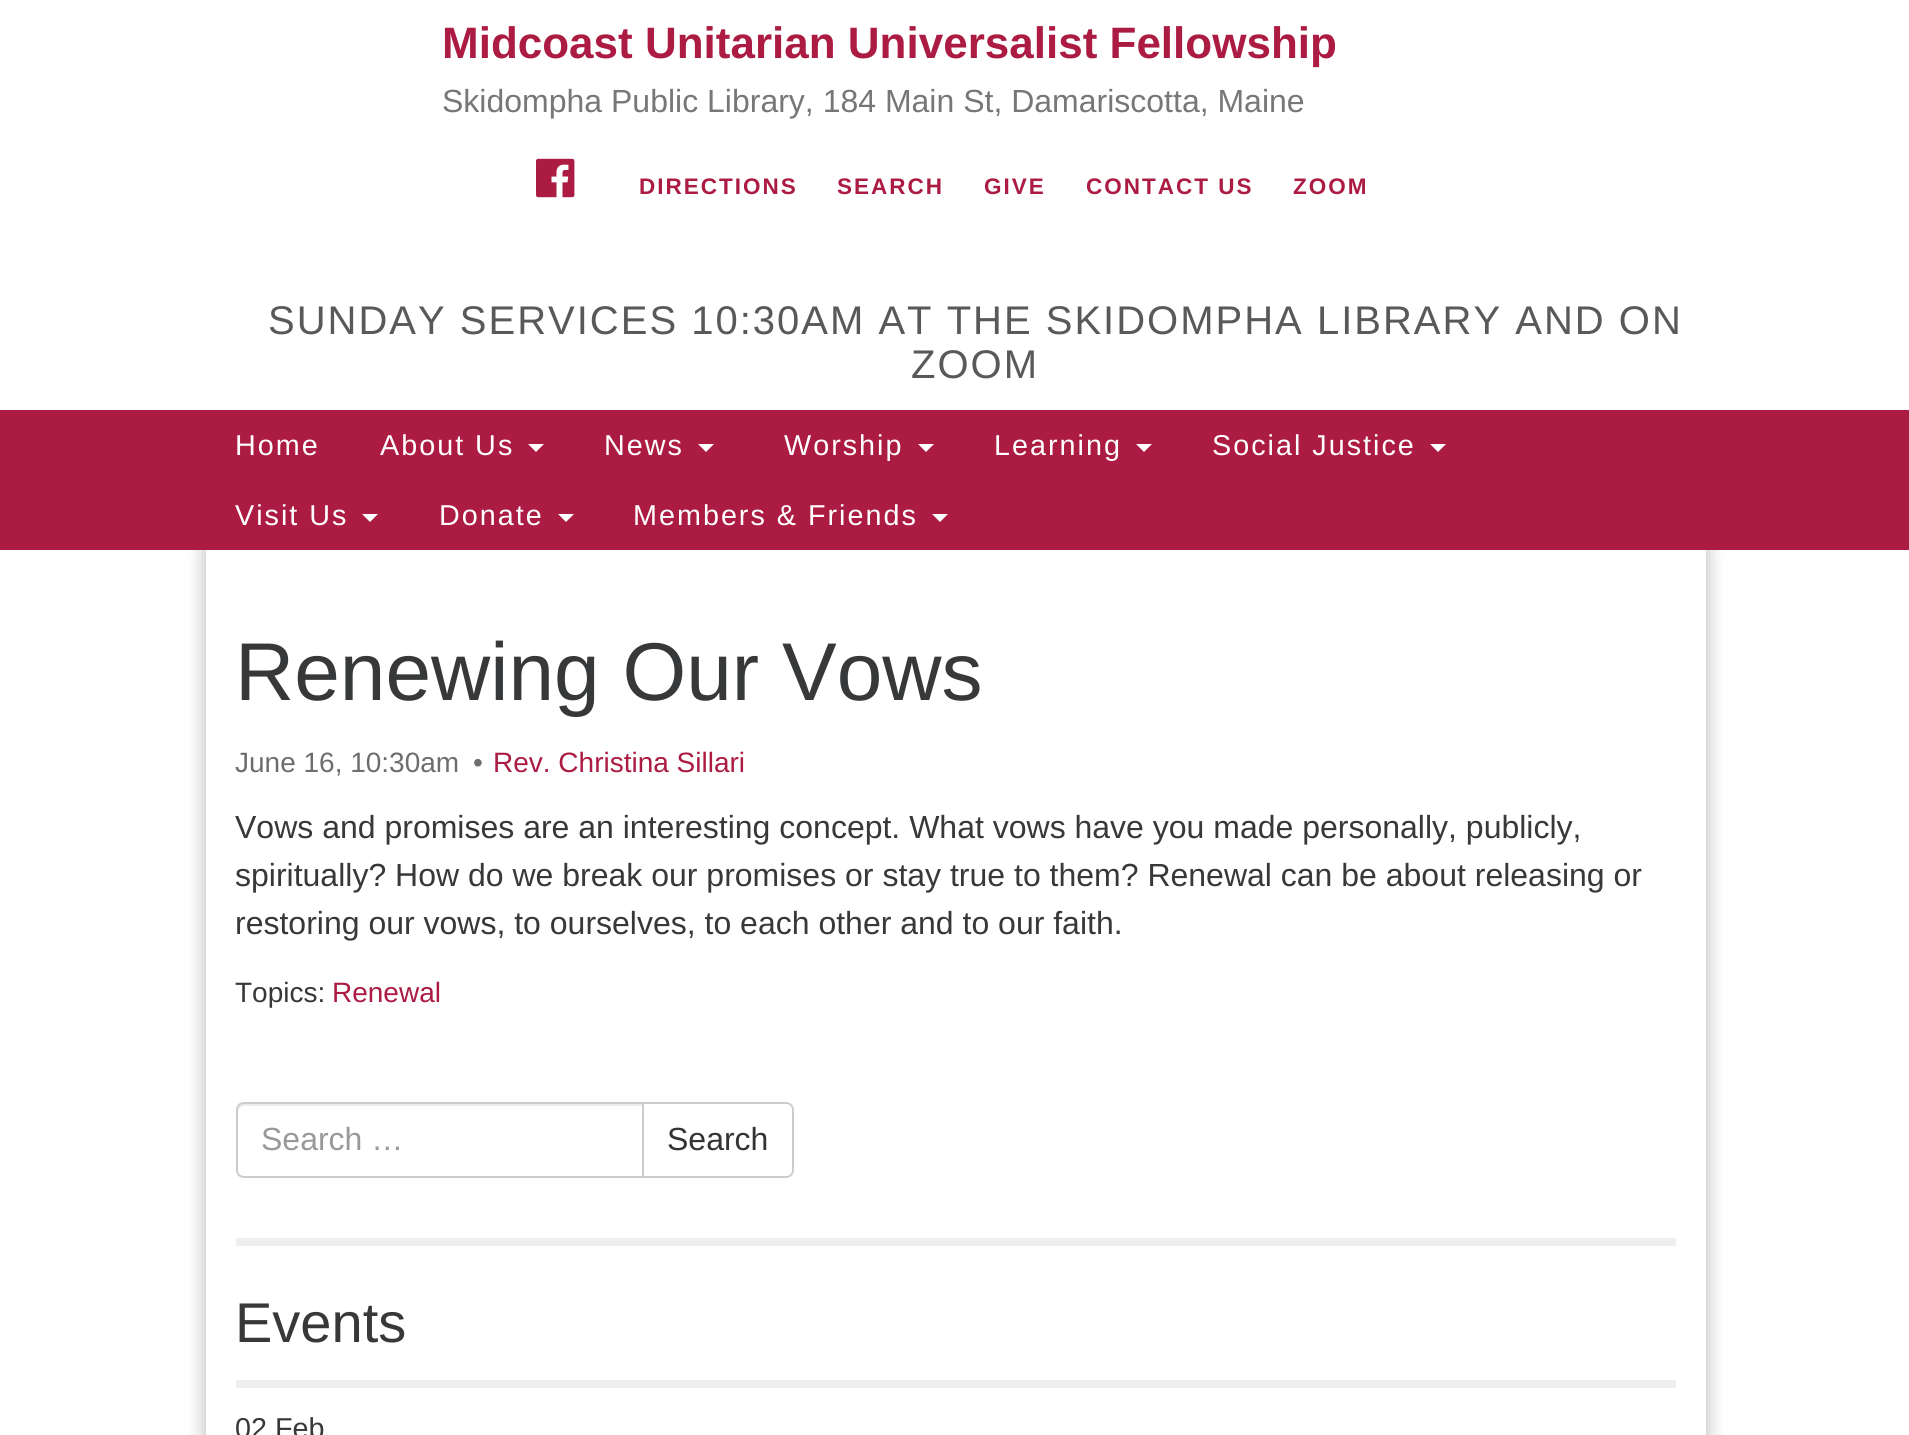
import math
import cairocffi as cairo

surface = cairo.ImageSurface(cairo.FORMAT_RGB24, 1909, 1435)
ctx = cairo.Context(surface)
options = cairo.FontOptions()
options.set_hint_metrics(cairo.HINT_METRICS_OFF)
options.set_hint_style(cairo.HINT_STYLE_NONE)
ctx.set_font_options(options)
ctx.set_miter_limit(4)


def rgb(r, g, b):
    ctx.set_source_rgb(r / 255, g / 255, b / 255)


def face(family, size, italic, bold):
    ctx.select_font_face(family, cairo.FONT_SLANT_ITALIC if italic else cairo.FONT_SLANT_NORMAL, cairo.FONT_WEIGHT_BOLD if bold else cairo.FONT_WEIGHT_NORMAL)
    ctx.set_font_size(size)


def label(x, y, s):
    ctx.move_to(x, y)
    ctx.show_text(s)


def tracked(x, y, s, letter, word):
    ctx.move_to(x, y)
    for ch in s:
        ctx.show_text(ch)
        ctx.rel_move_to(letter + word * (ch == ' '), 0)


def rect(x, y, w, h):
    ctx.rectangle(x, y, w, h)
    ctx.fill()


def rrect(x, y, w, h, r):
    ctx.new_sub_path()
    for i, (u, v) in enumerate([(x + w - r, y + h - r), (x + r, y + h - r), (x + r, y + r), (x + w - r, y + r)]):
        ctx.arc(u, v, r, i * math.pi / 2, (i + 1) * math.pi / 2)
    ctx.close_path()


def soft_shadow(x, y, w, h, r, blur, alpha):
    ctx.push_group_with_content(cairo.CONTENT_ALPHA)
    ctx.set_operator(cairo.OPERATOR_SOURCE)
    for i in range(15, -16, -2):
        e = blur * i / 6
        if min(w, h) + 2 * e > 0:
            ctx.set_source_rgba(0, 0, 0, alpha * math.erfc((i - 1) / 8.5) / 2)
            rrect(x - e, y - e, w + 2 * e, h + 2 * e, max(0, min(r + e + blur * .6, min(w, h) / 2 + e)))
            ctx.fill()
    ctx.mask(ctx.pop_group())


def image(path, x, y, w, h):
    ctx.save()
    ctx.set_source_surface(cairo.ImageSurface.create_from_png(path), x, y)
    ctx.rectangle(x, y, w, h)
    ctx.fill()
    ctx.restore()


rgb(255, 255, 255)
ctx.paint()
face('Liberation Sans', 44, 0, 1)
rgb(171, 27, 66)
label(442, 58, 'Midcoast Unitarian Universalist Fellowship')
face('Liberation Sans', 32, 0, 0)
rgb(119, 119, 119)
label(442, 112, 'Skidompha Public Library, 184 Main St, Damariscotta, Maine')
image('image0.png', 536, 158, 39, 40)
face('Liberation Sans', 22.5, 0, 1)
rgb(171, 27, 66)
tracked(639, 194, 'DIRECTIONS', 2, 0)
tracked(837, 194, 'SEARCH', 2, 0)
tracked(984, 194, 'GIVE', 2, 0)
tracked(1086, 194, 'CONTACT US', 2, 0)
tracked(1293, 194, 'ZOOM', 2, 0)
face('Liberation Sans', 40, 0, 0)
rgb(88, 89, 91)
tracked(268, 334, 'SUNDAY SERVICES 10:30AM AT THE SKIDOMPHA LIBRARY AND ON', 2, 0)
tracked(911, 378, 'ZOOM', 2, 0)
ctx.save()
ctx.set_fill_rule(cairo.FILL_RULE_EVEN_ODD)
ctx.new_path()
ctx.move_to(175, 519)
ctx.line_to(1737, 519)
ctx.line_to(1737, 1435)
ctx.line_to(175, 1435)
ctx.close_path()
ctx.move_to(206, 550)
ctx.line_to(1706, 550)
ctx.line_to(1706, 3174)
ctx.line_to(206, 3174)
ctx.close_path()
ctx.clip()
rgb(0, 0, 0)
soft_shadow(206, 550, 1500, 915, 0, 10, 0.3)
ctx.restore()
rgb(171, 27, 66)
rect(0, 410, 1909, 140)
face('Liberation Sans', 28.75, 0, 0)
rgb(255, 255, 255)
tracked(235, 455, 'Home', 2, 0)
tracked(380, 455, 'About Us', 2, 0)
ctx.new_path()
ctx.move_to(528, 444)
ctx.line_to(544, 444)
ctx.line_to(536, 452)
ctx.close_path()
ctx.fill()
tracked(604, 455, 'News', 2, 0)
ctx.new_path()
ctx.move_to(698, 444)
ctx.line_to(714, 444)
ctx.line_to(706, 452)
ctx.close_path()
ctx.fill()
tracked(784, 455, 'Worship', 2, 0)
ctx.new_path()
ctx.move_to(918, 444)
ctx.line_to(934, 444)
ctx.line_to(926, 452)
ctx.close_path()
ctx.fill()
tracked(994, 455, 'Learning', 2, 0)
ctx.new_path()
ctx.move_to(1136, 444)
ctx.line_to(1152, 444)
ctx.line_to(1144, 452)
ctx.close_path()
ctx.fill()
tracked(1212, 455, 'Social Justice', 2, 0)
ctx.new_path()
ctx.move_to(1430, 444)
ctx.line_to(1446, 444)
ctx.line_to(1438, 452)
ctx.close_path()
ctx.fill()
tracked(235, 525, 'Visit Us', 2, 0)
ctx.new_path()
ctx.move_to(362, 514)
ctx.line_to(378, 514)
ctx.line_to(370, 522)
ctx.close_path()
ctx.fill()
tracked(439, 525, 'Donate', 2, 0)
ctx.new_path()
ctx.move_to(558, 514)
ctx.line_to(574, 514)
ctx.line_to(566, 522)
ctx.close_path()
ctx.fill()
tracked(633, 525, 'Members & Friends', 2, 0)
ctx.new_path()
ctx.move_to(932, 514)
ctx.line_to(948, 514)
ctx.line_to(940, 522)
ctx.close_path()
ctx.fill()
face('Liberation Sans', 82, 0, 0)
rgb(55, 56, 57)
label(235, 700, 'Renewing Our Vows')
face('Liberation Sans', 28, 0, 0)
rgb(108, 109, 111)
label(235, 772, 'June 16, 10:30am')
label(473, 772, '•')
rgb(171, 27, 66)
label(493, 772, 'Rev. Christina Sillari')
face('Liberation Sans', 32, 0, 0)
rgb(55, 56, 57)
label(235, 838, 'Vows and promises are an interesting concept. What vows have you made personally, publicly,')
label(235, 886, 'spiritually? How do we break our promises or stay true to them? Renewal can be about releasing or')
label(235, 934, 'restoring our vows, to ourselves, to each other and to our faith.')
face('Liberation Sans', 28, 0, 0)
label(235, 1002, 'Topics:')
rgb(171, 27, 66)
label(332, 1002, 'Renewal')
ctx.new_path()
ctx.move_to(643, 1103)
ctx.line_to(786, 1103)
ctx.curve_to(790, 1103, 793, 1106, 793, 1110)
ctx.line_to(793, 1170)
ctx.curve_to(793, 1174, 790, 1177, 786, 1177)
ctx.line_to(643, 1177)
ctx.close_path()
rgb(204, 204, 204)
ctx.stroke()
rgb(255, 255, 255)
ctx.new_path()
ctx.move_to(244, 1102)
ctx.line_to(644, 1102)
ctx.line_to(644, 1178)
ctx.line_to(244, 1178)
ctx.curve_to(239.5, 1178, 236, 1174.5, 236, 1170)
ctx.line_to(236, 1110)
ctx.curve_to(236, 1105.5, 239.5, 1102, 244, 1102)
ctx.close_path()
ctx.fill()
rgb(236, 236, 236)
ctx.new_path()
ctx.move_to(244, 1106)
ctx.line_to(642, 1106)
ctx.line_to(642, 1104)
ctx.line_to(244, 1104)
ctx.curve_to(239, 1104, 238, 1108, 238, 1112)
ctx.curve_to(238, 1109, 241, 1106, 244, 1106)
ctx.close_path()
ctx.fill()
ctx.new_path()
ctx.move_to(244, 1103)
ctx.line_to(643, 1103)
ctx.line_to(643, 1177)
ctx.line_to(244, 1177)
ctx.curve_to(240, 1177, 237, 1174, 237, 1170)
ctx.line_to(237, 1110)
ctx.curve_to(237, 1106, 240, 1103, 244, 1103)
ctx.close_path()
rgb(204, 204, 204)
ctx.stroke()
face('Liberation Sans', 32, 0, 0)
rgb(153, 153, 153)
label(261, 1150, 'Search …')
rgb(51, 51, 51)
label(667, 1150, 'Search')
rgb(238, 238, 238)
rect(236, 1238, 1440, 8)
face('Liberation Sans', 56, 0, 0)
rgb(55, 56, 57)
label(235, 1342, 'Events')
rgb(238, 238, 238)
rect(236, 1380, 1440, 8)
face('Liberation Sans', 28.75, 0, 0)
rgb(55, 56, 57)
label(235, 1438, '02 Feb')
surface.write_to_png('render.png')
